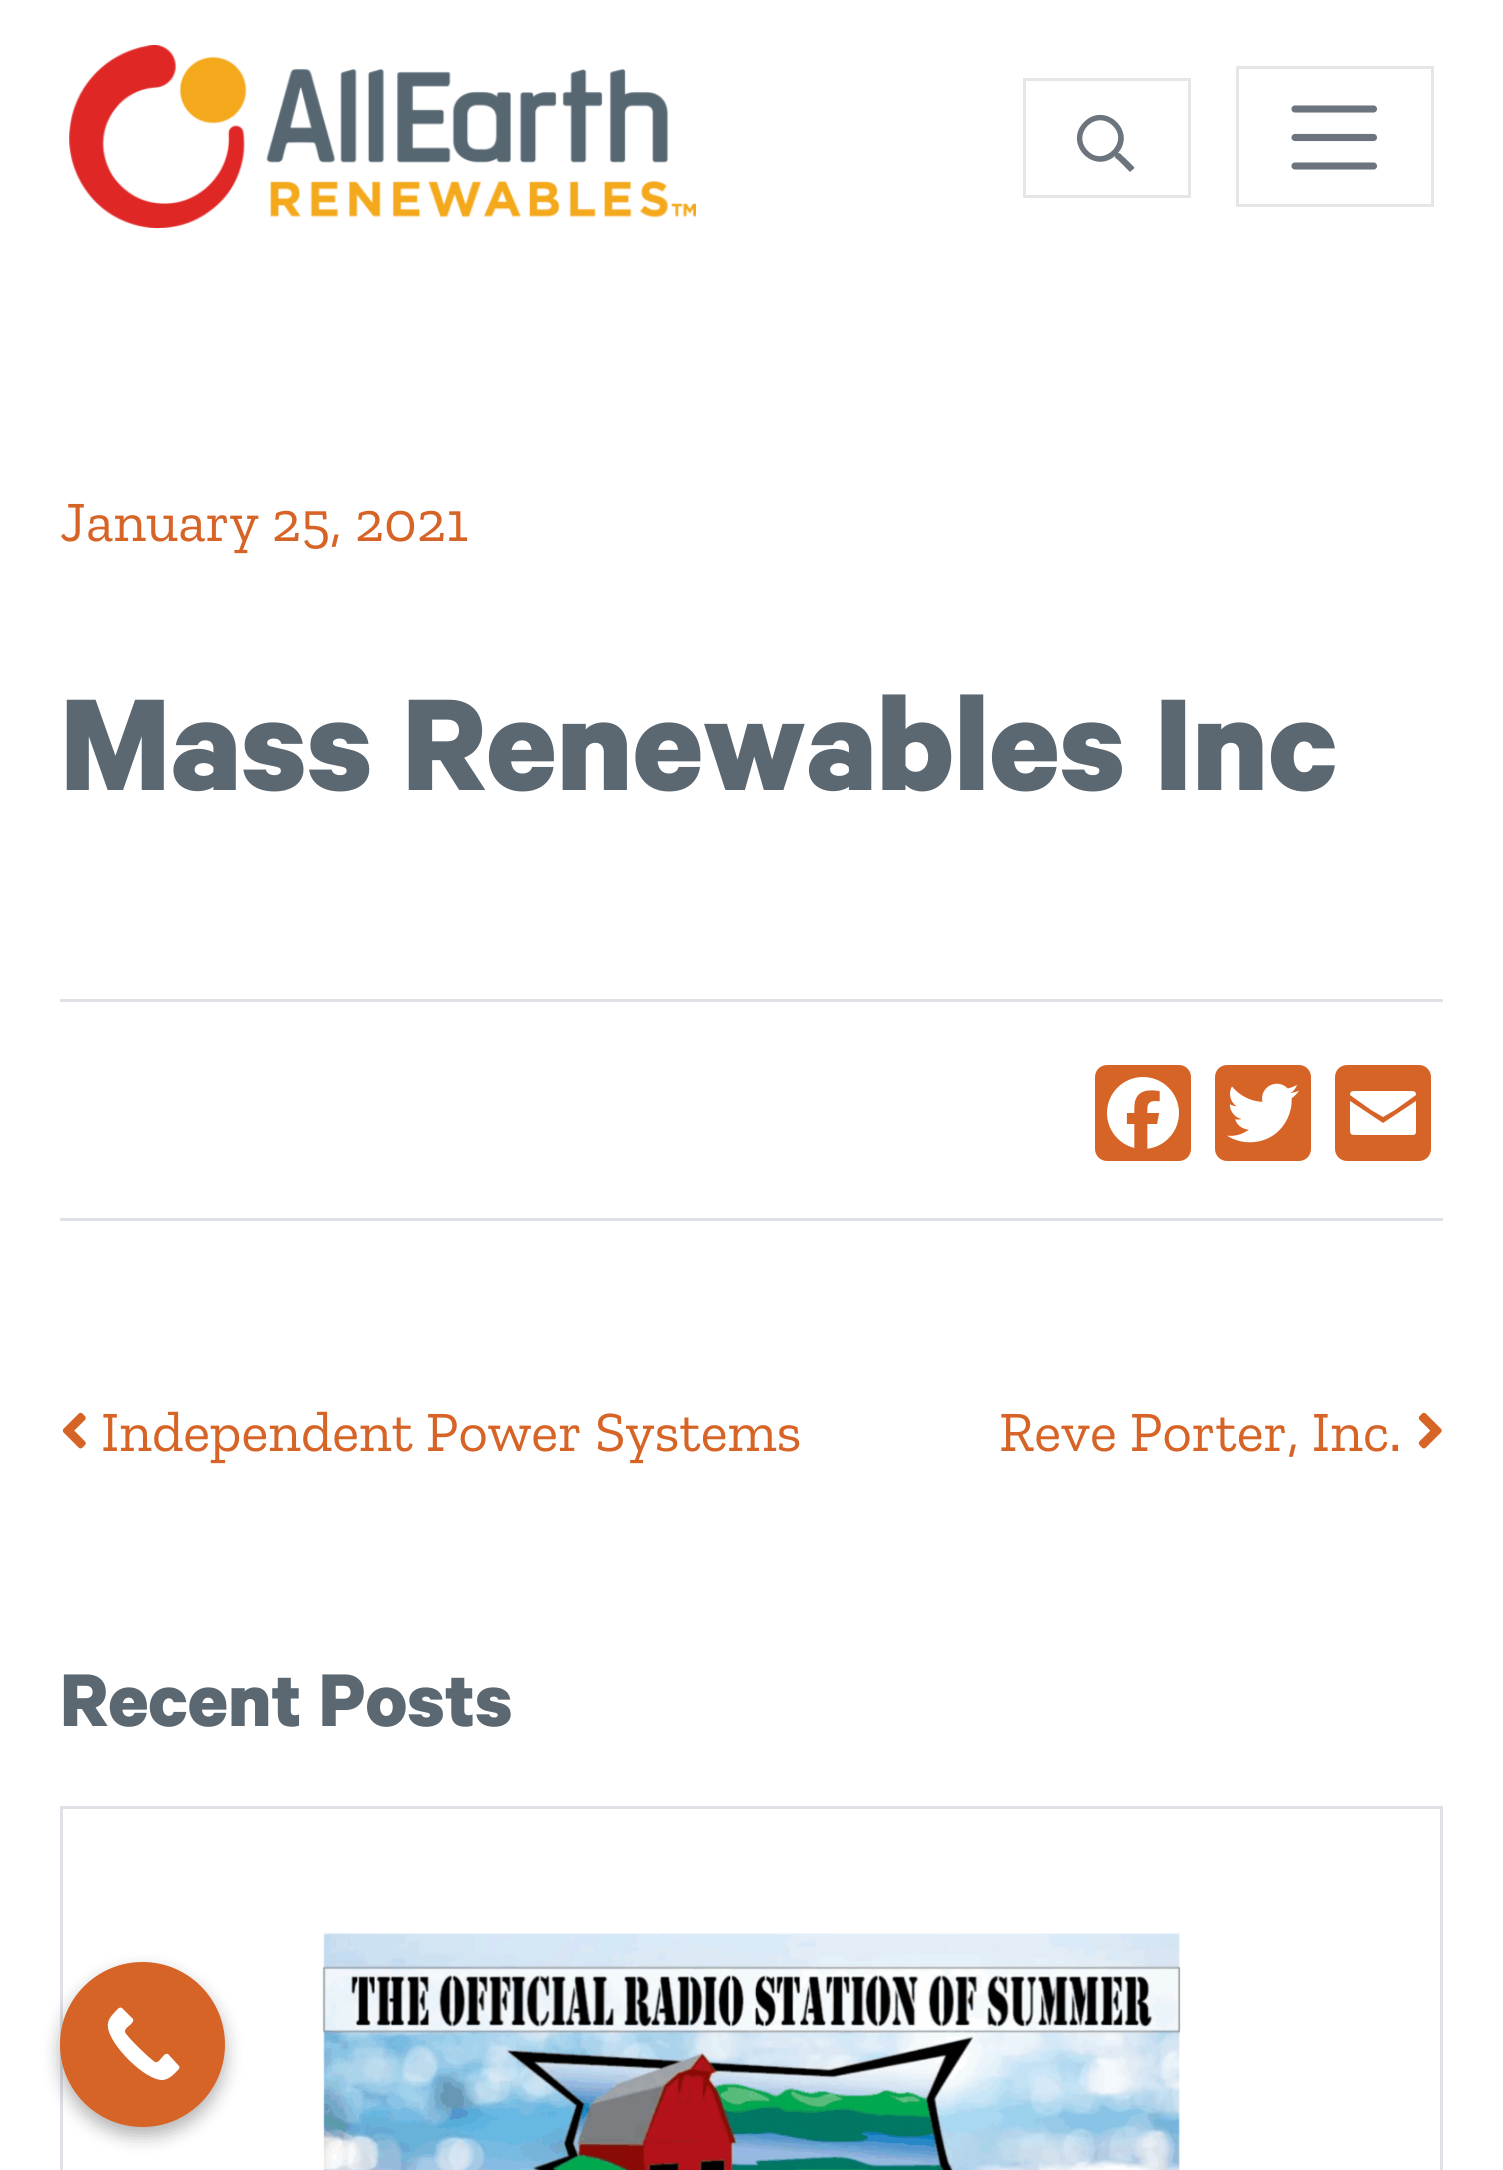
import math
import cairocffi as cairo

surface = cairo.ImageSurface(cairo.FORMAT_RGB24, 1503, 2170)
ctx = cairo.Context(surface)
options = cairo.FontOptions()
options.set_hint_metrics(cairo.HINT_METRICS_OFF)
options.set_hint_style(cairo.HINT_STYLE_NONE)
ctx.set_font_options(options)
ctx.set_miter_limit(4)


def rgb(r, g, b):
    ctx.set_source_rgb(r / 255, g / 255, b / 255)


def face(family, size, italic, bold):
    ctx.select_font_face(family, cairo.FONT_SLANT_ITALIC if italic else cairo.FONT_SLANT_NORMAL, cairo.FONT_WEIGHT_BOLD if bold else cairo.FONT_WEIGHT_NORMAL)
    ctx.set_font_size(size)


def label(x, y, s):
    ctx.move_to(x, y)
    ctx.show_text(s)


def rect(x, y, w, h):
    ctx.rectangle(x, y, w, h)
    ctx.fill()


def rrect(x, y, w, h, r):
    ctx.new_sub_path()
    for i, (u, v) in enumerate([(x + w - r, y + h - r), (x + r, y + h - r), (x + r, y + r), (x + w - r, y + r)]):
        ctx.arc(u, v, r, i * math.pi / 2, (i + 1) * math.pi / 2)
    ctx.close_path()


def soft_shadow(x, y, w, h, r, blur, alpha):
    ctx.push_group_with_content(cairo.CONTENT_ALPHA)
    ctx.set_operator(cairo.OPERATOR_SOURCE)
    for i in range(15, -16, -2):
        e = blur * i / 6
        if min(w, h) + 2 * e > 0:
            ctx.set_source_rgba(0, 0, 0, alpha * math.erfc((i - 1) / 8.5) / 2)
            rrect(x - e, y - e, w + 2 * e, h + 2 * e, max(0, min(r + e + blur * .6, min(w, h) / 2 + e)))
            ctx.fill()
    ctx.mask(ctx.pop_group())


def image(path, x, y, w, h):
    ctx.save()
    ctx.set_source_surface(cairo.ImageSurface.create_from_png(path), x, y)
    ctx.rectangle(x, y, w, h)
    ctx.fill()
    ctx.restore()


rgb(255, 255, 255)
ctx.paint()
image('image0.png', 69, 45, 627, 183)
ctx.rectangle(1024.5, 79.5, 165, 117)
rgb(230, 230, 230)
ctx.set_line_width(3)
ctx.stroke()
rgb(108, 117, 125)
ctx.new_path()
ctx.move_to(1134, 167)
ctx.curve_to(1135, 168, 1133, 170, 1132, 170)
ctx.curve_to(1130, 173, 1130, 172, 1127, 169)
ctx.line_to(1118, 160)
ctx.curve_to(1116, 158, 1115, 159, 1115, 156)
ctx.curve_to(1093, 175, 1063, 143, 1084, 122)
ctx.curve_to(1105, 101, 1137, 131, 1118, 153)
ctx.curve_to(1121, 153, 1121, 155, 1125, 158)
ctx.close_path()
ctx.move_to(1088, 151)
ctx.curve_to(1104, 167, 1129, 142, 1113, 126)
ctx.curve_to(1096, 109, 1071, 134, 1088, 151)
ctx.close_path()
ctx.fill()
ctx.rectangle(1237.5, 67.5, 195, 138)
rgb(230, 230, 230)
ctx.stroke()
ctx.new_path()
ctx.move_to(1295, 109)
ctx.line_to(1373.5, 109)
ctx.move_to(1295, 137.5)
ctx.line_to(1373.5, 137.5)
ctx.move_to(1295, 166)
ctx.line_to(1373.5, 166)
rgb(108, 117, 125)
ctx.set_line_width(7.1)
ctx.set_line_cap(cairo.LINE_CAP_ROUND)
ctx.stroke()
face('Zilla Slab', 57, 0, 0)
rgb(215, 100, 39)
label(60, 541, 'January 25, 2021')
face('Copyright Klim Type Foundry', 147, 0, 1)
rgb(91, 103, 113)
label(60, 790, 'Mass Renewables Inc')
rgb(222, 226, 230)
rect(60, 999, 1383, 3)
rect(60, 1218, 1383, 3)
rgb(215, 100, 39)
rrect(1095, 1065, 96, 96, 12)
ctx.fill()
image('image1.png', 1107, 1077, 72, 72)
rrect(1215, 1065, 96, 96, 12)
ctx.fill()
image('image2.png', 1227, 1083, 72, 60)
rrect(1335, 1065, 96, 96, 12)
ctx.fill()
rgb(255, 255, 255)
ctx.new_path()
ctx.move_to(1416, 1130)
ctx.line_to(1416, 1101)
ctx.line_to(1383, 1123)
ctx.line_to(1350, 1101)
ctx.line_to(1350, 1130)
ctx.curve_to(1350, 1134, 1351, 1135, 1355, 1135)
ctx.line_to(1411, 1135)
ctx.curve_to(1415, 1135, 1416, 1135, 1416, 1130)
ctx.move_to(1416, 1095)
ctx.curve_to(1416, 1092, 1415, 1091, 1411, 1091)
ctx.line_to(1355, 1091)
ctx.curve_to(1351, 1091, 1350, 1092, 1350, 1095)
ctx.line_to(1371, 1110)
ctx.line_to(1383, 1117)
ctx.line_to(1395, 1110)
ctx.close_path()
ctx.fill()
image('image3.png', 62, 1412, 24, 37)
face('Zilla Slab', 57, 0, 0)
rgb(215, 100, 39)
label(101, 1451, 'Independent Power Systems')
label(999, 1451, 'Reve Porter, Inc.')
image('image4.png', 1418, 1412, 24, 37)
face('Copyright Klim Type Foundry', 84, 0, 1)
rgb(91, 103, 113)
label(60, 1726, 'Recent Posts')
ctx.rectangle(61.5, 1807.5, 1380, 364)
rgb(222, 226, 230)
ctx.set_line_width(3)
ctx.set_line_cap(cairo.LINE_CAP_BUTT)
ctx.stroke()
image('image5.png', 322, 1932, 859, 238)
rgb(0, 0, 0)
soft_shadow(60, 1971, 165, 165, 82.5, 9, 0.3)
rgb(215, 100, 39)
ctx.arc(142.5, 2044.5, 82.5, 0, 2 * math.pi)
ctx.fill()
rgb(255, 255, 255)
ctx.new_path()
ctx.move_to(179, 2069)
ctx.curve_to(174, 2074, 170, 2079, 163, 2080)
ctx.curve_to(145, 2081, 109, 2044, 108, 2027)
ctx.curve_to(107, 2022, 110, 2017, 114, 2013)
ctx.curve_to(116, 2011, 119, 2006, 122, 2008)
ctx.line_to(133, 2019)
ctx.curve_to(135, 2024, 124, 2027, 125, 2032)
ctx.curve_to(127, 2037, 150, 2059, 155, 2062)
ctx.curve_to(160, 2064, 163, 2052, 168, 2054)
ctx.line_to(179, 2066)
ctx.curve_to(180, 2067, 179, 2068, 179, 2069)
ctx.close_path()
ctx.fill()
surface.write_to_png('render.png')
